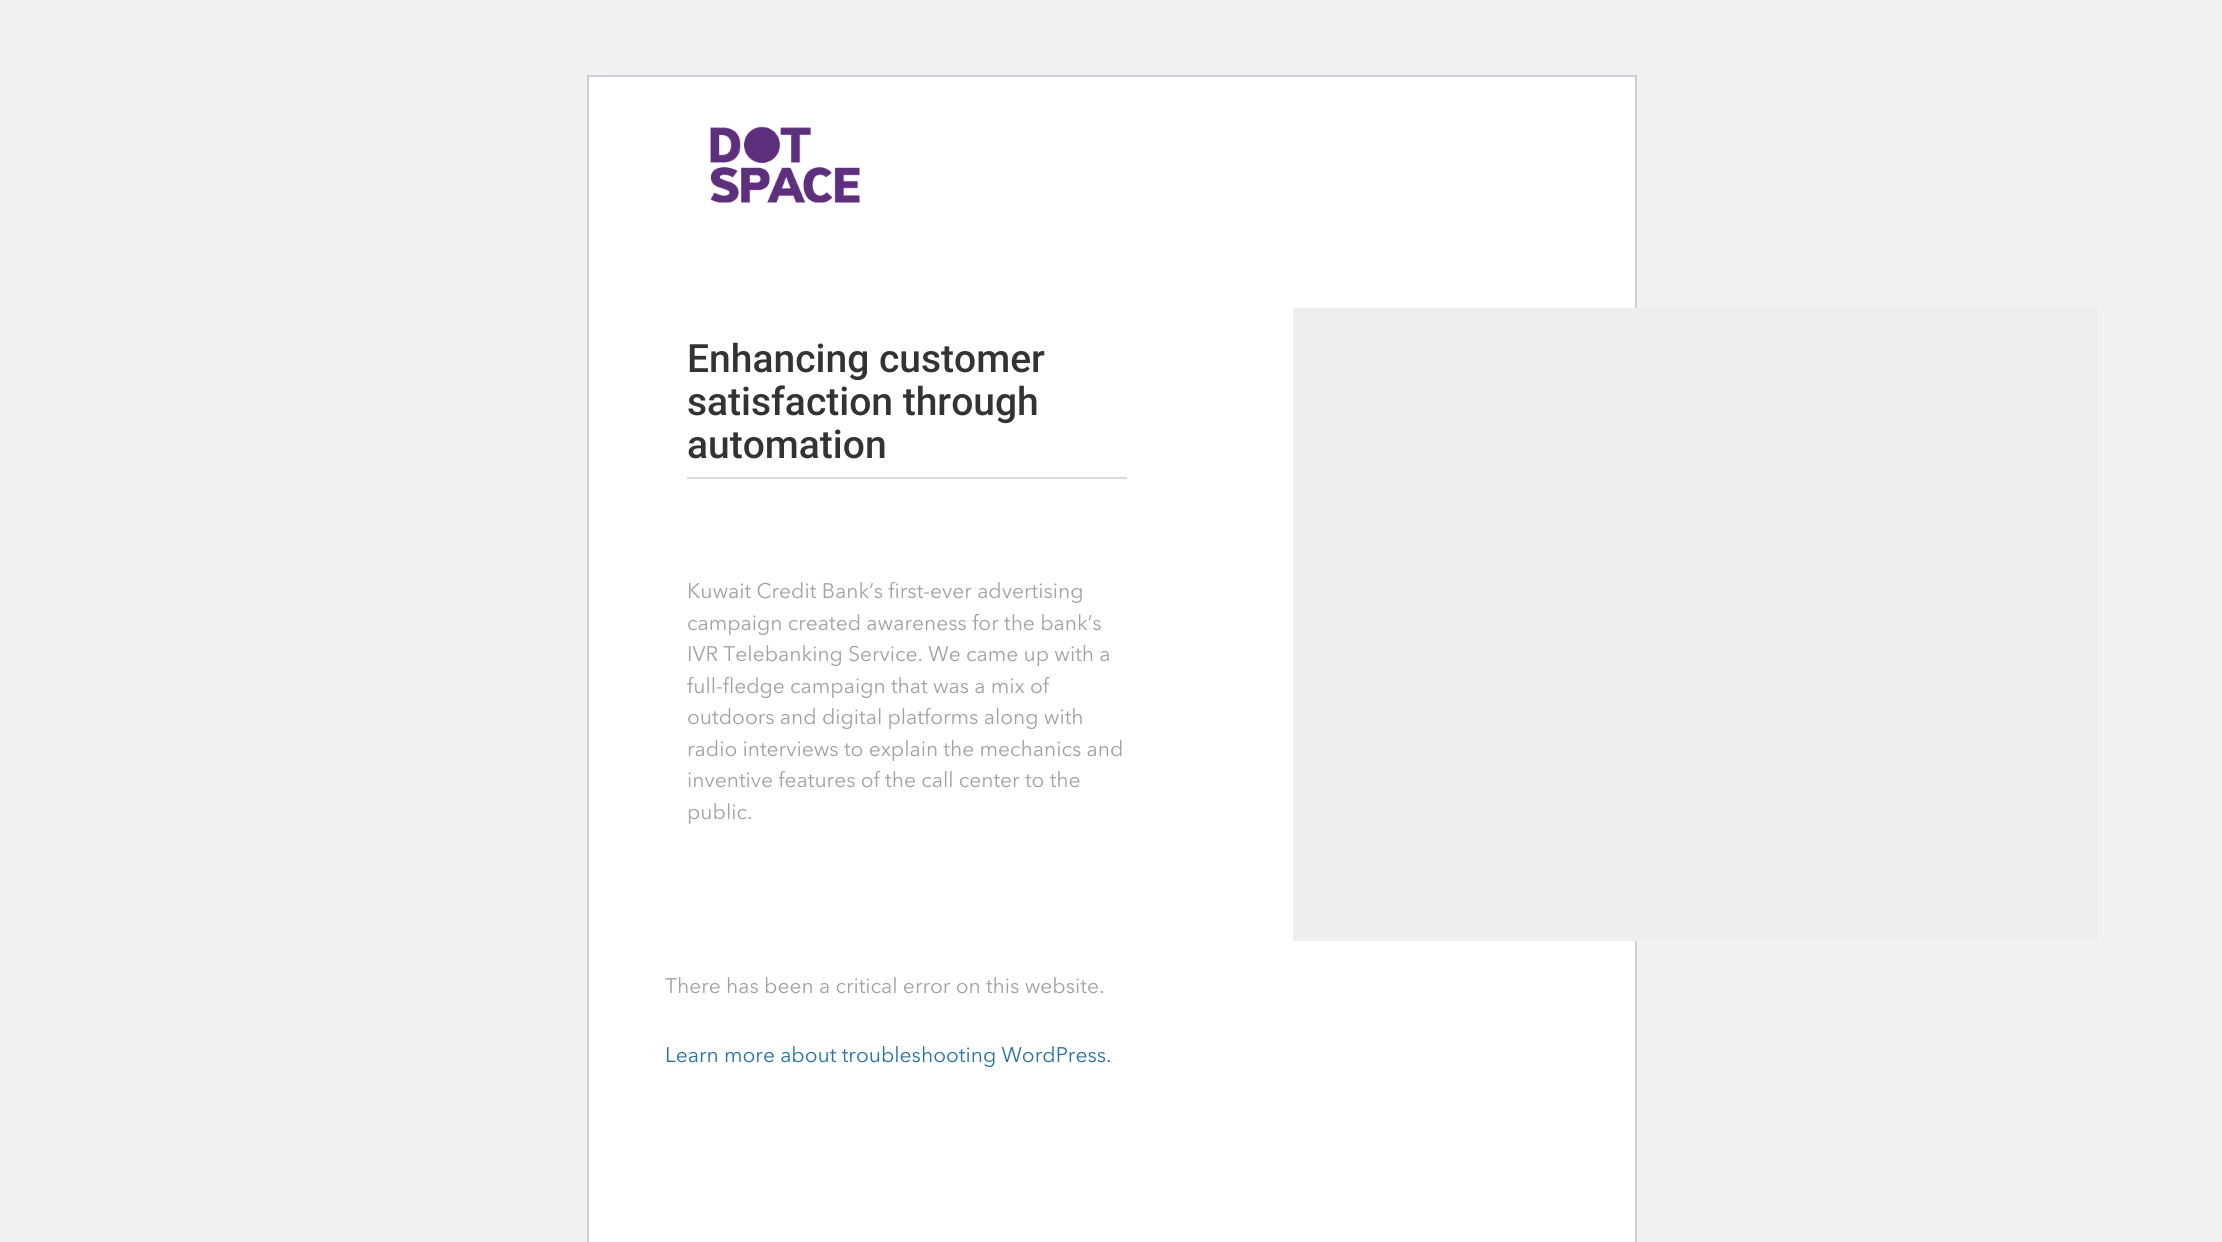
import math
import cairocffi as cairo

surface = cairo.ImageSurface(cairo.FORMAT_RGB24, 2222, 1242)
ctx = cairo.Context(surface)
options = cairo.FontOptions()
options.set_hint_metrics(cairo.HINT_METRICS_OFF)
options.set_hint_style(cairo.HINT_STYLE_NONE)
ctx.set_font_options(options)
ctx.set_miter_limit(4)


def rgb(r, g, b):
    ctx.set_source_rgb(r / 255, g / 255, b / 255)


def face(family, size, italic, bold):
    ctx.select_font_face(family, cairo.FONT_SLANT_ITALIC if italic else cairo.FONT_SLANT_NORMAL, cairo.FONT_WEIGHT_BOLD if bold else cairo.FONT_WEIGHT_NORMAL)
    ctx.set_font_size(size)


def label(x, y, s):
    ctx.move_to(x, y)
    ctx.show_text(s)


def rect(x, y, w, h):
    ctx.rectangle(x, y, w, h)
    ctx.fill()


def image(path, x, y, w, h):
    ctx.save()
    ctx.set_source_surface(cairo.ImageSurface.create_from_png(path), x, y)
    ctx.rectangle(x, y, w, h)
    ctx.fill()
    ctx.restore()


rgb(241, 241, 241)
ctx.paint()
rgb(255, 255, 255)
ctx.rectangle(588, 76, 1048, 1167)
ctx.fill_preserve()
rgb(204, 208, 212)
ctx.stroke()
image('image0.png', 710, 126, 150, 77)
rgb(218, 218, 218)
rect(687, 477, 440, 2)
face('Roboto Medium', 39, 0, 0)
rgb(51, 51, 51)
label(687, 372, 'Enhancing customer')
label(687, 415, 'satisfaction through')
label(687, 458, 'automation')
face('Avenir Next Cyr', 21, 0, 0)
rgb(160, 161, 160)
label(687, 598, 'Kuwait Credit Bank’s first-ever advertising')
label(687, 630, 'campaign created awareness for the bank’s')
label(687, 661, 'IVR Telebanking Service. We came up with a')
label(687, 693, 'full-fledge campaign that was a mix of')
label(687, 724, 'outdoors and digital platforms along with')
label(687, 756, 'radio interviews to explain the mechanics and')
label(687, 787, 'inventive features of the call center to the')
label(687, 819, 'public.')
rgb(238, 238, 238)
rect(1293, 308, 804, 633)
rgb(160, 161, 160)
label(665, 993, 'There has been a critical error on this website.')
rgb(34, 113, 177)
label(665, 1062, 'Learn more about troubleshooting WordPress.')
surface.write_to_png('render.png')
